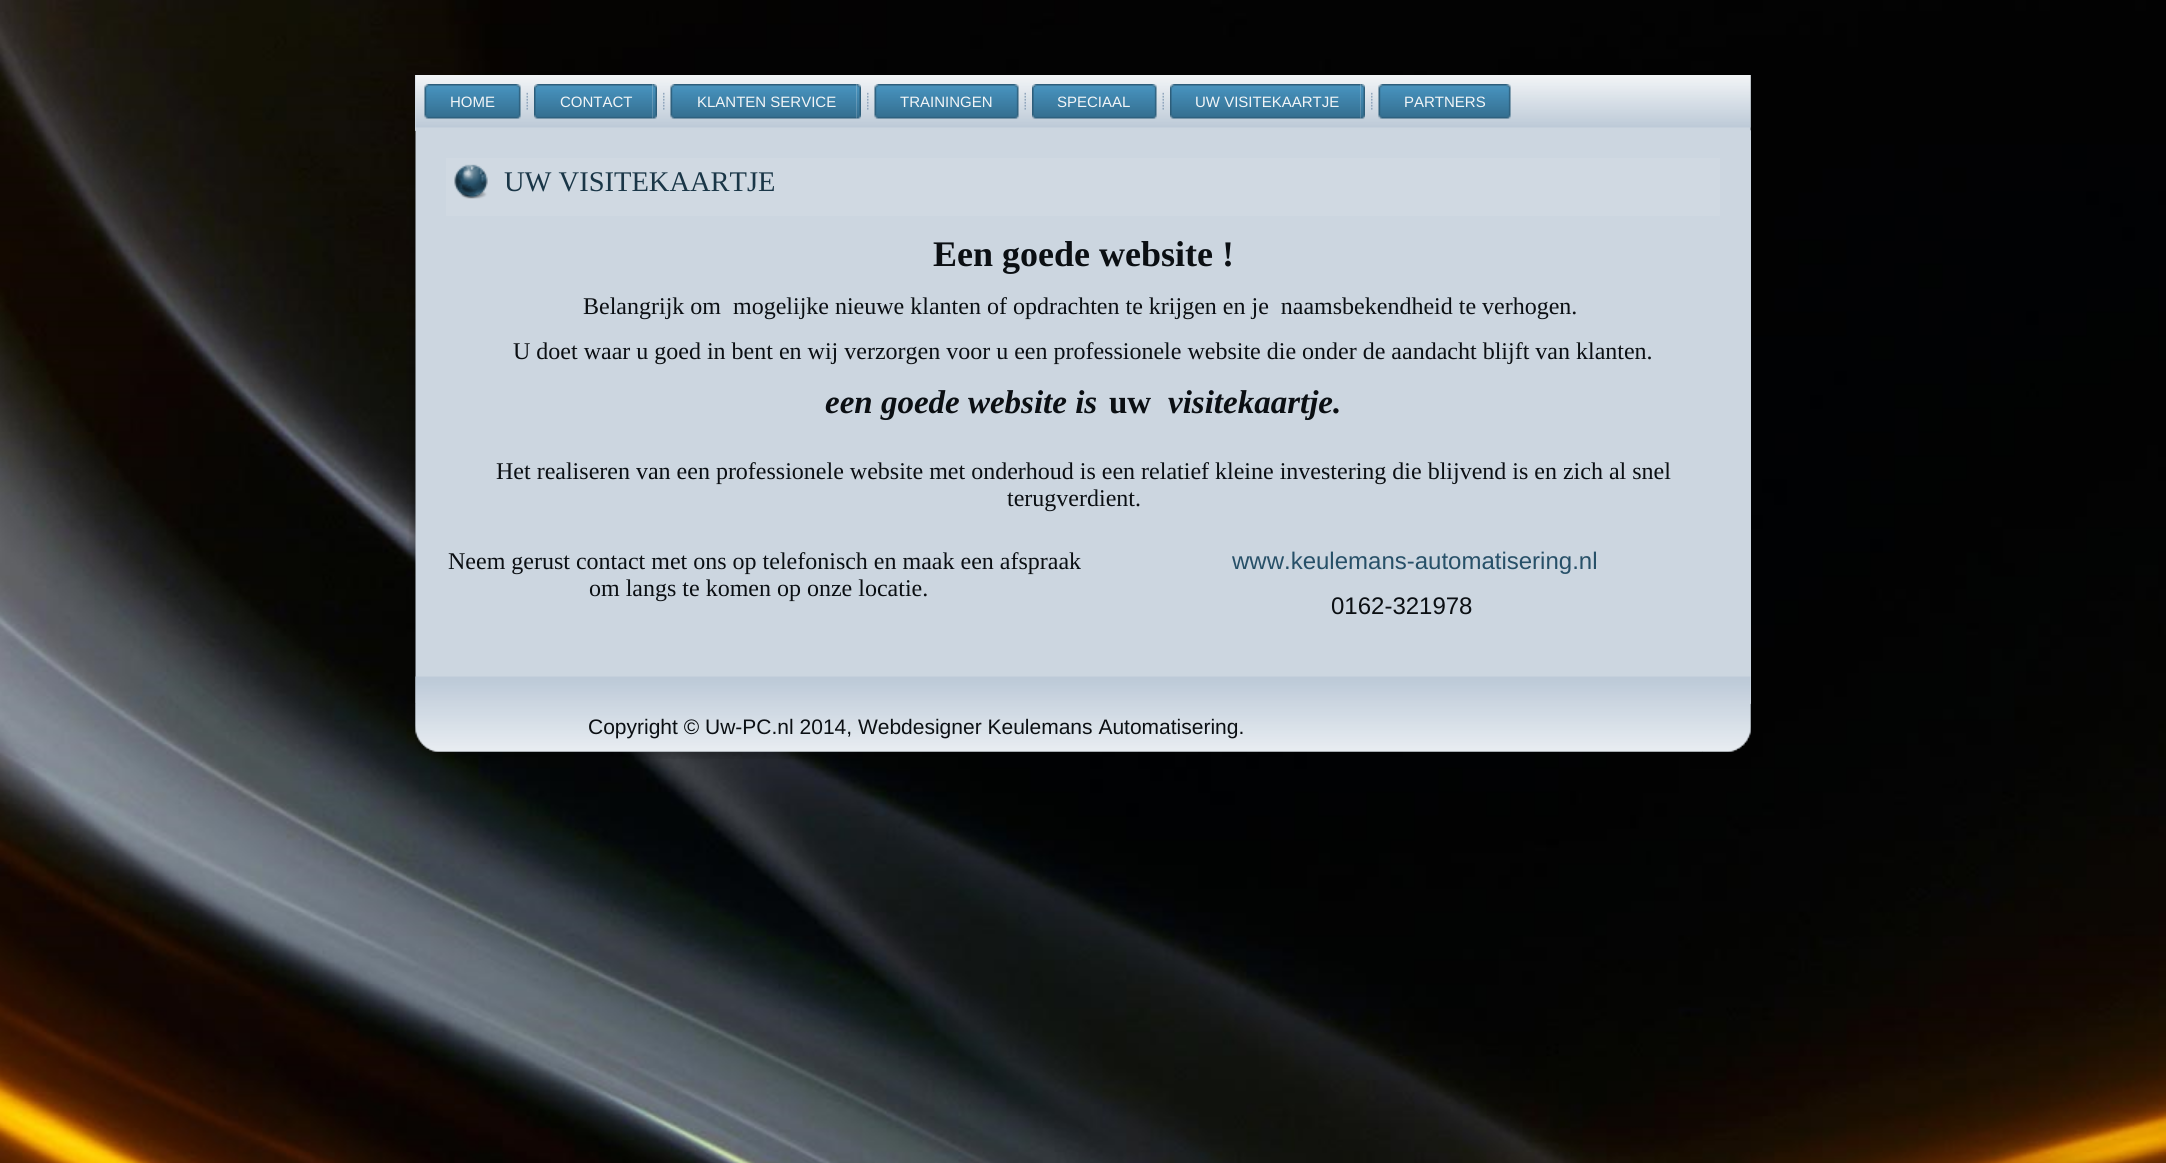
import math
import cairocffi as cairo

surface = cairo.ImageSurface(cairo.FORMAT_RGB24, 2166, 1163)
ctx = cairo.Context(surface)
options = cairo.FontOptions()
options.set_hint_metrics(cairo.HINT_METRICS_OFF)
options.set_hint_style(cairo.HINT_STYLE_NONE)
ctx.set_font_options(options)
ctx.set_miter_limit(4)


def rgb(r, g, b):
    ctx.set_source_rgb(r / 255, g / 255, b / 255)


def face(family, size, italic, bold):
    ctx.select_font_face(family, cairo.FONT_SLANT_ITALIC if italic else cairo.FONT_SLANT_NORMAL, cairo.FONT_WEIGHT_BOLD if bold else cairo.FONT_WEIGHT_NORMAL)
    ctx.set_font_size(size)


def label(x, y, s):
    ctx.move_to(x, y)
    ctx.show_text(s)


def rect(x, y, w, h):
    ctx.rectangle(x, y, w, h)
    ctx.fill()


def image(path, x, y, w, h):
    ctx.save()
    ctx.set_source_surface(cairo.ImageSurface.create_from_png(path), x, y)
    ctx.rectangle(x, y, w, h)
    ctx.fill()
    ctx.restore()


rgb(255, 255, 255)
ctx.paint()
image('image0.png', 0, 0, 2166, 1163)
image('image1.png', 415, 703, 1288, 56)
rgb(204, 214, 224)
rect(415, 75, 1288, 56)
rect(1702, 130, 49, 574)
image('image2.png', 1702, 75, 49, 677)
image('image3.png', 1750, 75, 1, 56)
image('image4.png', 415, 75, 1310, 53)
image('image5.png', 1725, 75, 26, 53)
image('image6.png', 424, 84, 92, 35)
image('image7.png', 516, 84, 5, 35)
face('Liberation Sans', 15, 0, 0)
rgb(242, 245, 247)
label(450, 107, 'HOME')
image('image8.png', 526, 92, 2, 18)
image('image9.png', 534, 84, 119, 35)
image('image10.png', 652, 84, 5, 35)
label(560, 107, 'CONTACT')
image('image11.png', 663, 92, 2, 18)
image('image12.png', 670, 84, 187, 35)
image('image13.png', 856, 84, 5, 35)
label(697, 107, 'KLANTEN SERVICE')
image('image11.png', 867, 92, 2, 18)
image('image14.png', 874, 84, 140, 35)
image('image7.png', 1014, 84, 5, 35)
label(900, 107, 'TRAININGEN')
image('image8.png', 1024, 92, 2, 18)
image('image15.png', 1032, 84, 120, 35)
image('image16.png', 1152, 84, 5, 35)
label(1057, 107, 'SPECIAAL')
image('image8.png', 1162, 92, 2, 18)
image('image17.png', 1170, 84, 191, 35)
image('image10.png', 1360, 84, 5, 35)
label(1195, 107, 'UW VISITEKAARTJE')
image('image11.png', 1371, 92, 2, 18)
image('image18.png', 1378, 84, 128, 35)
image('image16.png', 1506, 84, 5, 35)
label(1404, 107, 'PARTNERS')
image('image19.png', 409, 130, 1293, 574)
rgb(208, 217, 226)
rect(446, 158, 1274, 58)
image('image20.png', 454, 164, 34, 35)
face('Liberation Serif', 28.5, 0, 0)
rgb(26, 54, 71)
label(504, 191, 'UW VISITEKAARTJE')
face('Liberation Serif', 36, 0, 1)
rgb(11, 15, 19)
label(933, 266, 'Een goede website !')
face('Liberation Serif', 24, 0, 0)
label(583, 314, 'Belangrijk om  mogelijke nieuwe klanten of opdrachten te krijgen en je  naamsbekendheid te verhogen.')
label(513, 359, 'U doet waar u goed in bent en wij verzorgen voor u een professionele website die onder de aandacht blijft van klanten.')
face('Liberation Serif', 33, 1, 1)
label(825, 413, 'een goede website is')
face('Liberation Serif', 33, 0, 1)
label(1109, 413, 'uw')
face('Liberation Serif', 33, 1, 1)
label(1168, 413, 'visitekaartje.')
face('Liberation Serif', 24, 0, 0)
label(496, 479, 'Het realiseren van een professionele website met onderhoud is een relatief kleine investering die blijvend is en zich al snel')
label(1007, 506, 'terugverdient.')
label(448, 569, 'Neem gerust contact met ons op telefonisch en maak een afspraak')
label(589, 596, 'om langs te komen op onze locatie.')
face('Liberation Sans', 24, 0, 0)
rgb(39, 80, 104)
label(1232, 569, 'www.keulemans-automatisering.nl')
rgb(11, 15, 19)
label(1331, 614, '0162-321978')
image('image21.png', 415, 676, 1310, 76)
image('image22.png', 1725, 676, 26, 76)
face('Liberation Sans', 21, 0, 0)
label(588, 734, 'Copyright © Uw-PC.nl 2014, Webdesigner Keulemans Automatisering.')
surface.write_to_png('render.png')
